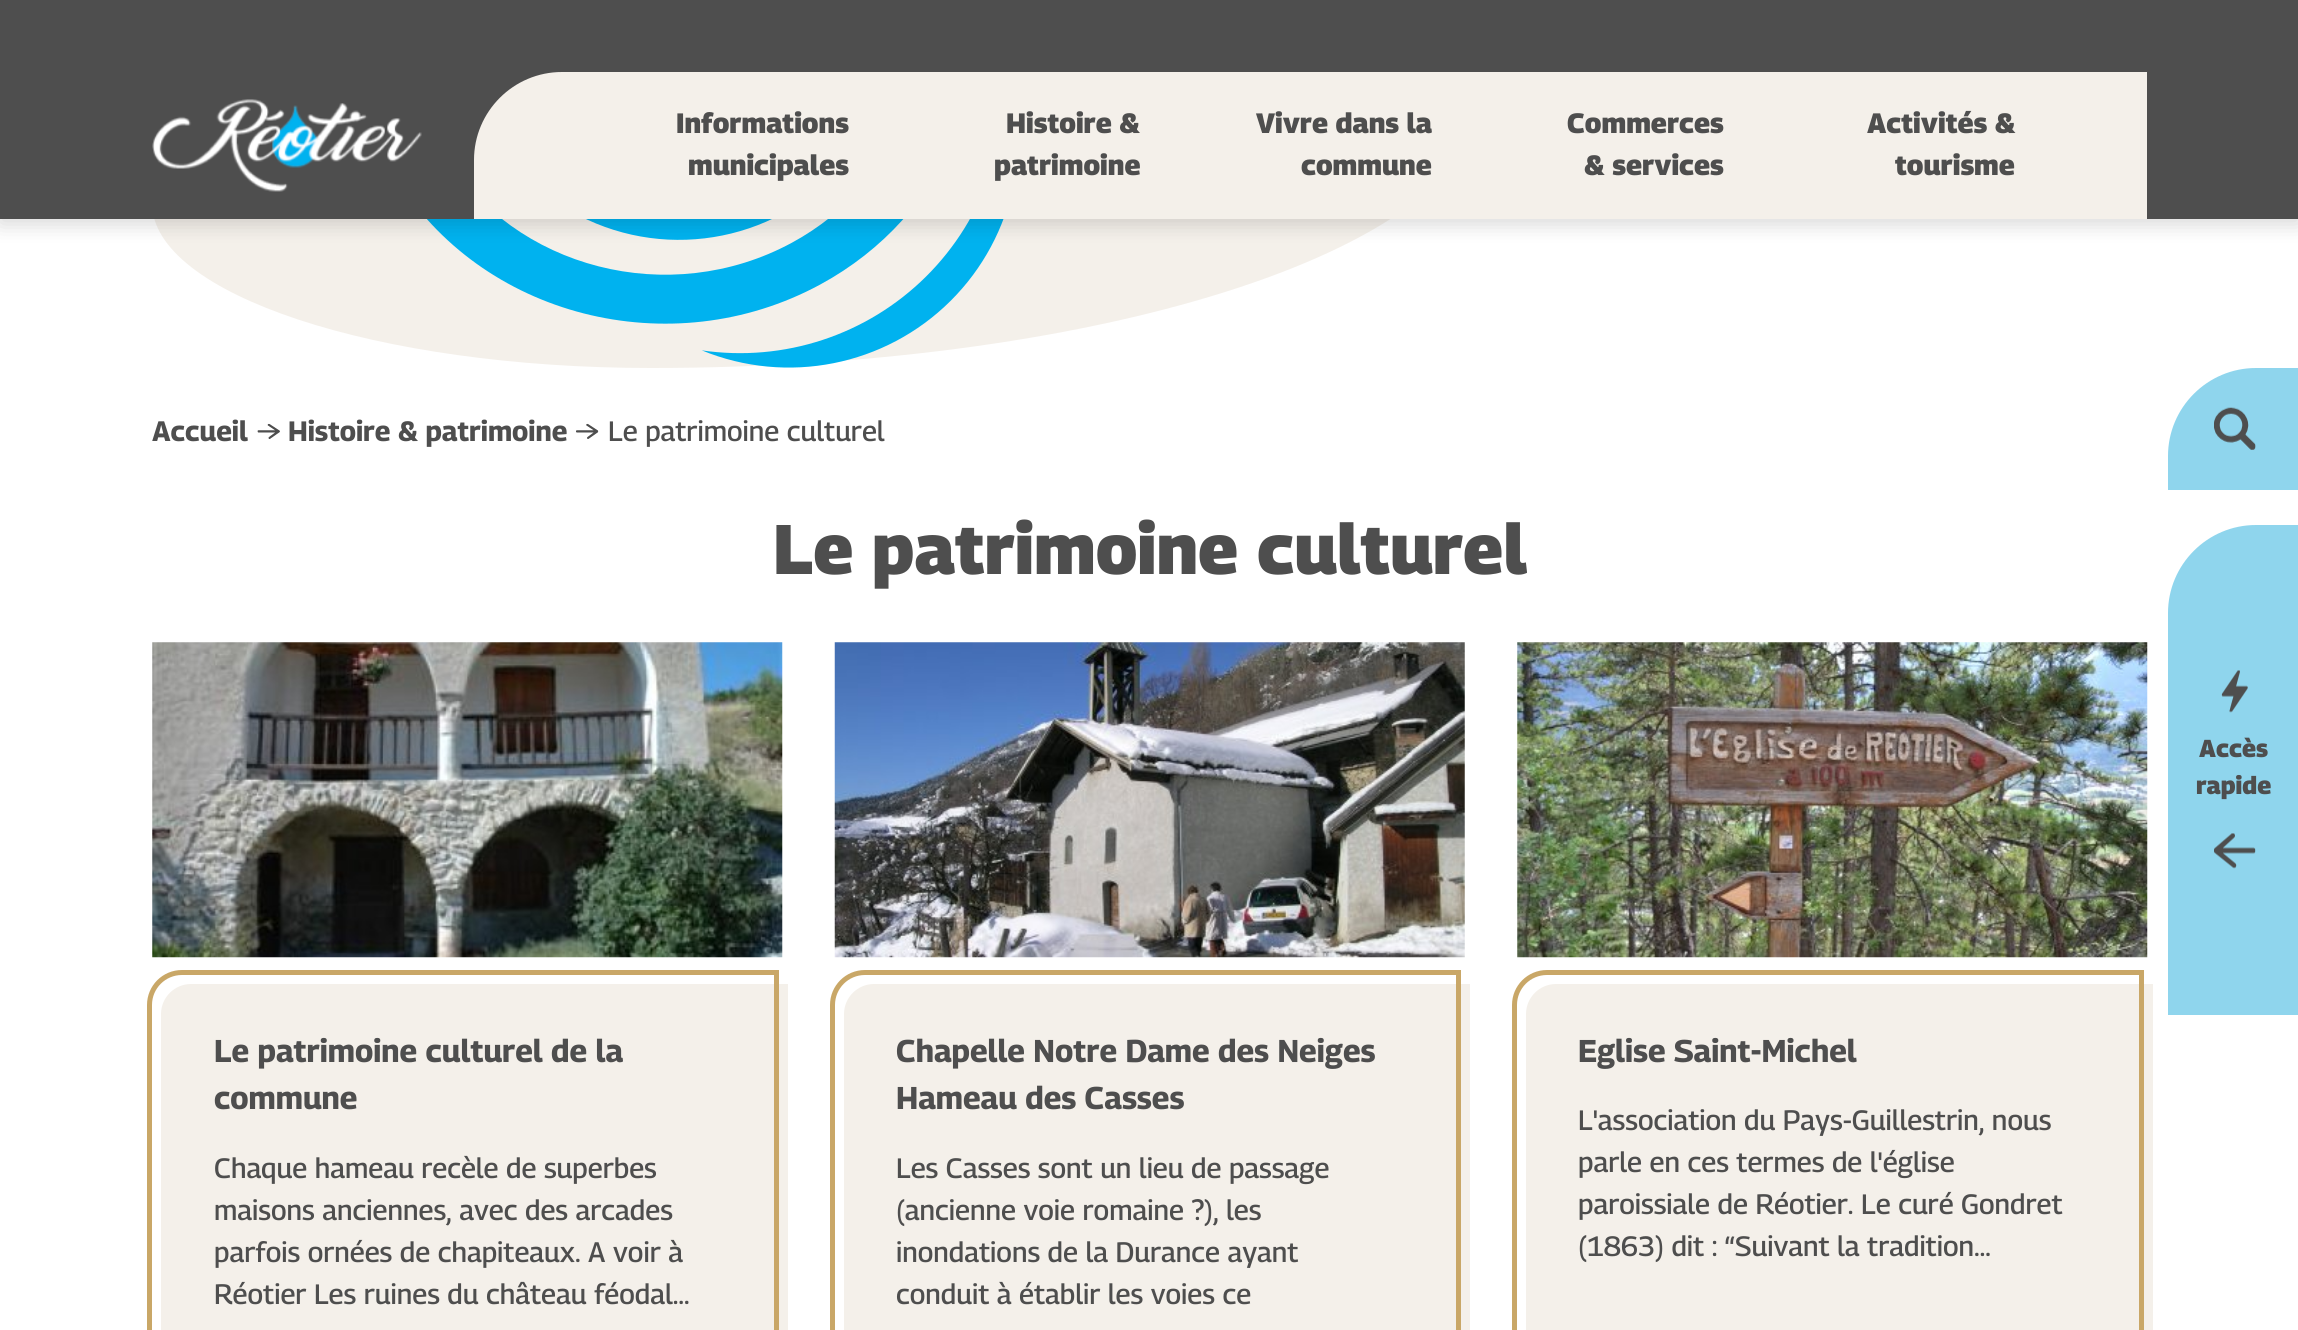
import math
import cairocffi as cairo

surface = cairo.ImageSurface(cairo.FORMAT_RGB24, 2298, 1330)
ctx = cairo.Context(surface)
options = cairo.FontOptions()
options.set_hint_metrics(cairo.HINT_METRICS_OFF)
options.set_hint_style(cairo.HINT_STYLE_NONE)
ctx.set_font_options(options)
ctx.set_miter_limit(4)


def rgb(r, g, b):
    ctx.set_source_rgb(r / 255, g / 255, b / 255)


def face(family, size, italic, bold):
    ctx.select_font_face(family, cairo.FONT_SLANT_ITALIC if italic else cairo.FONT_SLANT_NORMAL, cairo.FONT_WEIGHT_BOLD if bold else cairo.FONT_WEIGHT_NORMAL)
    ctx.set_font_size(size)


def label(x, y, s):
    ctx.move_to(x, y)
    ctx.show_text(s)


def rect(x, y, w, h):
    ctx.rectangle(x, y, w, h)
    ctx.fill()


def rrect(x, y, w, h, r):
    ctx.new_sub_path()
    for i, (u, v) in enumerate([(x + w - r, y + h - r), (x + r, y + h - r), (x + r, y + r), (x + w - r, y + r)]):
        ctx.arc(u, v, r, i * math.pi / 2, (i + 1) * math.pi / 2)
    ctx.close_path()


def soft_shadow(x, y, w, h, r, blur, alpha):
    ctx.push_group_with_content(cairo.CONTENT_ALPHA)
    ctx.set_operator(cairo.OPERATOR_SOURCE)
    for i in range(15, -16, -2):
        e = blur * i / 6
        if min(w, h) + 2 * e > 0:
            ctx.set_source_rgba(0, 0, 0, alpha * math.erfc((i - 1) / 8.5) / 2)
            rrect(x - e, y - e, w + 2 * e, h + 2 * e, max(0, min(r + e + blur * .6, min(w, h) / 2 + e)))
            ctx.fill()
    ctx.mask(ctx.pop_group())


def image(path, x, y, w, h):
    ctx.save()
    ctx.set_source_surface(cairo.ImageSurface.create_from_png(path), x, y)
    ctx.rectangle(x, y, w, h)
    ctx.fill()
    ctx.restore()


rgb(255, 255, 255)
ctx.paint()
rgb(244, 240, 234)
ctx.new_path()
ctx.move_to(152, -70)
ctx.line_to(1482, -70)
ctx.line_to(1482, 94)
ctx.curve_to(1482, 245, 1110, 368, 651, 368)
ctx.curve_to(376, 368, 152, 294, 152, 203)
ctx.close_path()
ctx.fill()
image('image4.png', 427, 219, 577, 149)
rgb(0, 0, 0)
soft_shadow(0, 5, 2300, 219, 0, 10.5, 0.16)
rgb(78, 78, 78)
rect(0, 0, 2298, 219)
image('image0.png', 152, 99, 270, 93)
rgb(244, 240, 234)
ctx.new_path()
ctx.move_to(562, 72)
ctx.line_to(2147, 72)
ctx.line_to(2147, 219)
ctx.line_to(474, 219)
ctx.line_to(474, 160)
ctx.curve_to(474, 111.5, 513.5, 72, 562, 72)
ctx.close_path()
ctx.fill()
face('Georama ExtraBold', 28, 0, 0)
rgb(78, 78, 78)
label(676, 133, 'Informations')
label(688, 175, 'municipales')
label(1006, 133, 'Histoire &')
label(994, 175, 'patrimoine')
label(1256, 133, 'Vivre dans la')
label(1301, 175, 'commune')
label(1567, 133, 'Commerces')
label(1584, 175, '& services')
label(1867, 133, 'Activités &')
label(1895, 175, 'tourisme')
rgb(143, 213, 237)
ctx.new_path()
ctx.move_to(2256, 368)
ctx.line_to(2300, 368)
ctx.line_to(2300, 490)
ctx.line_to(2168, 490)
ctx.line_to(2168, 456)
ctx.curve_to(2168, 407.5, 2207.5, 368, 2256, 368)
ctx.close_path()
ctx.fill()
image('image1.png', 2214, 407, 42, 43)
ctx.new_path()
ctx.move_to(2256, 525)
ctx.line_to(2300, 525)
ctx.line_to(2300, 1015)
ctx.line_to(2168, 1015)
ctx.line_to(2168, 613)
ctx.curve_to(2168, 564.5, 2207.5, 525, 2256, 525)
ctx.close_path()
ctx.fill()
image('image2.png', 2221, 670, 27, 43)
face('Georama ExtraBold', 24.5, 0, 0)
rgb(78, 78, 78)
label(2199, 757, 'Accès')
label(2196, 794, 'rapide')
image('image3.png', 2214, 833, 42, 36)
face('Georama', 28, 0, 1)
label(152, 441, 'Accueil')
image('image5.png', 257, 423, 23, 16)
label(288, 441, 'Histoire & patrimoine')
image('image6.png', 576, 423, 23, 16)
face('Georama Medium', 28, 0, 0)
label(608, 441, 'Le patrimoine culturel')
face('Georama ExtraBold', 70, 0, 0)
label(773, 574, 'Le patrimoine culturel')
image('image7.png', 152, 642, 631, 316)
rgb(244, 240, 234)
ctx.new_path()
ctx.move_to(191, 984)
ctx.line_to(788, 984)
ctx.line_to(788, 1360)
ctx.line_to(161, 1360)
ctx.line_to(161, 1014)
ctx.curve_to(161, 997.5, 174.5, 984, 191, 984)
ctx.close_path()
ctx.fill()
ctx.new_path()
ctx.move_to(182, 972.5)
ctx.line_to(776.5, 972.5)
ctx.line_to(776.5, 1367.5)
ctx.line_to(149.5, 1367.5)
ctx.line_to(149.5, 1005)
ctx.curve_to(149.5, 987, 164, 972.5, 182, 972.5)
ctx.close_path()
rgb(201, 167, 103)
ctx.set_line_width(5)
ctx.stroke()
face('Georama', 31.5, 0, 1)
rgb(78, 78, 78)
label(214, 1062, 'Le patrimoine culturel de la')
label(214, 1109, 'commune')
face('Georama Medium', 28, 0, 0)
label(214, 1178, 'Chaque hameau recèle de superbes')
label(214, 1220, 'maisons anciennes, avec des arcades')
label(214, 1262, 'parfois ornées de chapiteaux. A voir à')
label(214, 1304, 'Réotier Les ruines du château féodal…')
image('image8.png', 834, 642, 631, 316)
rgb(244, 240, 234)
ctx.new_path()
ctx.move_to(874, 984)
ctx.line_to(1470, 984)
ctx.line_to(1470, 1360)
ctx.line_to(844, 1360)
ctx.line_to(844, 1014)
ctx.curve_to(844, 997.5, 857.5, 984, 874, 984)
ctx.close_path()
ctx.fill()
ctx.new_path()
ctx.move_to(865, 972.5)
ctx.line_to(1458.5, 972.5)
ctx.line_to(1458.5, 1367.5)
ctx.line_to(832.5, 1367.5)
ctx.line_to(832.5, 1005)
ctx.curve_to(832.5, 987, 847, 972.5, 865, 972.5)
ctx.close_path()
rgb(201, 167, 103)
ctx.stroke()
face('Georama', 31.5, 0, 1)
rgb(78, 78, 78)
label(896, 1062, 'Chapelle Notre Dame des Neiges')
label(896, 1109, 'Hameau des Casses')
face('Georama Medium', 28, 0, 0)
label(896, 1178, 'Les Casses sont un lieu de passage')
label(896, 1220, '(ancienne voie romaine ?), les')
label(896, 1262, 'inondations de la Durance ayant')
label(896, 1304, 'conduit à établir les voies ce')
image('image9.png', 1517, 642, 631, 316)
rgb(244, 240, 234)
ctx.new_path()
ctx.move_to(1556, 984)
ctx.line_to(2153, 984)
ctx.line_to(2153, 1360)
ctx.line_to(1526, 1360)
ctx.line_to(1526, 1014)
ctx.curve_to(1526, 997.5, 1539.5, 984, 1556, 984)
ctx.close_path()
ctx.fill()
ctx.new_path()
ctx.move_to(1547, 972.5)
ctx.line_to(2141.5, 972.5)
ctx.line_to(2141.5, 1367.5)
ctx.line_to(1514.5, 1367.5)
ctx.line_to(1514.5, 1005)
ctx.curve_to(1514.5, 987, 1529, 972.5, 1547, 972.5)
ctx.close_path()
rgb(201, 167, 103)
ctx.stroke()
face('Georama', 31.5, 0, 1)
rgb(78, 78, 78)
label(1578, 1062, 'Eglise Saint-Michel')
face('Georama Medium', 28, 0, 0)
label(1578, 1130, 'L\'association du Pays-Guillestrin, nous')
label(1578, 1172, 'parle en ces termes de l\'église')
label(1578, 1214, 'paroissiale de Réotier. Le curé Gondret')
label(1578, 1256, '(1863) dit : “Suivant la tradition…')
surface.write_to_png('render.png')
